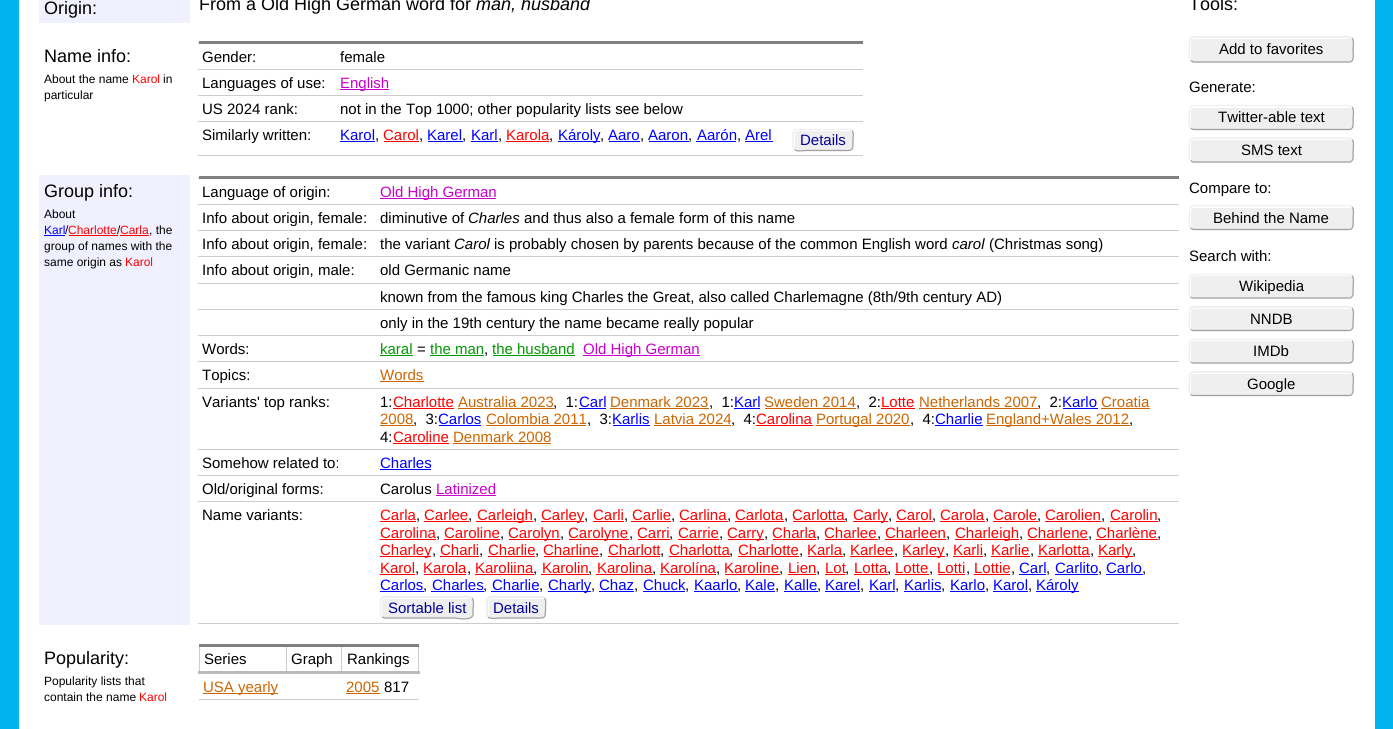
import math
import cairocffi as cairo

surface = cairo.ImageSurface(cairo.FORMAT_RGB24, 1393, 729)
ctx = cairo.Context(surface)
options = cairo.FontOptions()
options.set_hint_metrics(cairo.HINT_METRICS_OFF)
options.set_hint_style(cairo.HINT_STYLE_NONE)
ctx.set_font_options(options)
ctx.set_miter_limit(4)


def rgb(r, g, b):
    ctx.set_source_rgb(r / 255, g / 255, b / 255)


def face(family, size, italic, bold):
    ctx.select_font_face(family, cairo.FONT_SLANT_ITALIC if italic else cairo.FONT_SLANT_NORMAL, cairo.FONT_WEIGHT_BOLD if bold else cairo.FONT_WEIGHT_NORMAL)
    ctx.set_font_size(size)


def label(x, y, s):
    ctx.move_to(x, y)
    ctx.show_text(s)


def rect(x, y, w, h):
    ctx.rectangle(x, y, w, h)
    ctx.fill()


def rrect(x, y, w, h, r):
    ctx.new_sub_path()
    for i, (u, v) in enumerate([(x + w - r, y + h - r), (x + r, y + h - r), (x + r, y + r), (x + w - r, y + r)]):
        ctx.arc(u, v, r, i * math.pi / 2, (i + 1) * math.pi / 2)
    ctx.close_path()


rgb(0, 181, 239)
ctx.paint()
rgb(255, 255, 255)
rect(19, 0, 1356, 729)
rgb(240, 240, 255)
rect(39, 0, 151, 23)
face('Liberation Sans', 18, 0, 0)
rgb(0, 0, 0)
label(44, 14, 'Origin:')
label(199, 10, 'From a Old High German word for')
face('Liberation Sans', 18, 1, 0)
label(476, 10, 'man, husband')
face('Liberation Sans', 18, 0, 0)
label(1189, 10, 'Tools:')
rgb(239, 239, 239)
rrect(1189, 36, 165, 27, 5)
ctx.fill()
rgb(255, 255, 255)
ctx.new_path()
ctx.move_to(1195, 39)
ctx.line_to(1352, 39)
ctx.curve_to(1351, 39, 1350, 38, 1349, 38)
ctx.line_to(1194, 38)
ctx.curve_to(1192, 38, 1190, 40, 1190, 42)
ctx.line_to(1190, 57)
ctx.curve_to(1190, 58, 1190, 59, 1191, 60)
ctx.line_to(1191, 50)
ctx.curve_to(1191, 47, 1189, 39, 1195, 39)
ctx.close_path()
ctx.fill()
ctx.new_path()
ctx.move_to(1352, 38)
ctx.curve_to(1354.5, 41, 1353, 46, 1353, 49.5)
ctx.curve_to(1353, 53, 1355, 62, 1349, 62)
ctx.line_to(1194, 62)
ctx.line_to(1190.5, 60.5)
rgb(159, 159, 159)
ctx.set_line_width(1.2)
ctx.stroke()
ctx.new_path()
ctx.move_to(1190.5, 60.5)
ctx.curve_to(1188, 58, 1189.5, 52.5, 1189.5, 49.5)
ctx.curve_to(1189.5, 46, 1187.5, 37, 1194, 37)
ctx.line_to(1349, 37)
ctx.line_to(1352, 38)
rgb(239, 239, 239)
ctx.stroke()
face('Liberation Sans', 15, 0, 0)
rgb(0, 0, 0)
label(1219, 54, 'Add to favorites')
label(1189, 92, 'Generate:')
rgb(239, 239, 239)
rrect(1189, 105, 165, 25, 5)
ctx.fill()
rgb(255, 255, 255)
ctx.new_path()
ctx.move_to(1195, 108)
ctx.line_to(1350, 108)
ctx.line_to(1353, 109)
ctx.curve_to(1352, 107, 1351, 106, 1349, 106)
ctx.line_to(1194, 106)
ctx.curve_to(1192, 106, 1190, 108, 1190, 110)
ctx.line_to(1190, 125)
ctx.curve_to(1190, 126, 1191, 128, 1192, 128)
ctx.curve_to(1190, 126, 1191, 121, 1191, 118)
ctx.curve_to(1191, 115, 1189, 108, 1195, 108)
ctx.close_path()
ctx.fill()
ctx.new_path()
ctx.move_to(1352, 107)
ctx.curve_to(1354.5, 109.5, 1353, 116.5, 1353, 120)
ctx.curve_to(1353, 123.5, 1354, 129.5, 1349, 129.5)
ctx.line_to(1193, 129.5)
ctx.line_to(1190.5, 128)
rgb(159, 159, 159)
ctx.stroke()
ctx.new_path()
ctx.move_to(1190.5, 128)
ctx.curve_to(1188, 125.5, 1189.5, 118.5, 1189.5, 115)
ctx.curve_to(1189.5, 111.5, 1188.5, 105.5, 1194, 105.5)
ctx.line_to(1349.5, 105.5)
ctx.line_to(1352, 107)
rgb(239, 239, 239)
ctx.stroke()
rgb(0, 0, 0)
label(1218, 122, 'Twitter-able text')
rgb(239, 239, 239)
rrect(1189, 138, 165, 25, 5)
ctx.fill()
rgb(255, 255, 255)
ctx.new_path()
ctx.move_to(1195, 140)
ctx.line_to(1350, 140)
ctx.line_to(1352, 141)
ctx.curve_to(1352, 140, 1350, 139, 1349, 139)
ctx.line_to(1194, 139)
ctx.curve_to(1192, 139, 1190, 141, 1190, 143)
ctx.line_to(1190, 157)
ctx.curve_to(1190, 158, 1190, 159, 1191, 160)
ctx.line_to(1191, 152)
ctx.curve_to(1191, 148, 1189, 140, 1195, 140)
ctx.close_path()
ctx.fill()
ctx.new_path()
ctx.move_to(1352, 139.5)
ctx.curve_to(1354.5, 142, 1353, 149, 1353, 152.5)
ctx.curve_to(1353, 156, 1354, 162, 1349, 162)
ctx.line_to(1193, 162)
ctx.line_to(1190.5, 160.5)
rgb(159, 159, 159)
ctx.stroke()
ctx.new_path()
ctx.move_to(1190.5, 160.5)
ctx.curve_to(1188, 158, 1189.5, 151, 1189.5, 147.5)
ctx.curve_to(1189.5, 144, 1188.5, 138, 1194, 138)
ctx.line_to(1349.5, 138)
ctx.line_to(1352, 139.5)
rgb(239, 239, 239)
ctx.stroke()
rgb(0, 0, 0)
label(1241, 155, 'SMS text')
label(1189, 193, 'Compare to:')
rgb(239, 239, 239)
rrect(1189, 205, 165, 25, 5)
ctx.fill()
rgb(255, 255, 255)
ctx.new_path()
ctx.move_to(1195, 208)
ctx.line_to(1350, 208)
ctx.line_to(1353, 209)
ctx.curve_to(1352, 207, 1351, 206, 1349, 206)
ctx.line_to(1194, 206)
ctx.curve_to(1192, 206, 1190, 208, 1190, 210)
ctx.line_to(1190, 225)
ctx.curve_to(1190, 226, 1191, 228, 1192, 228)
ctx.curve_to(1190, 226, 1191, 221, 1191, 218)
ctx.curve_to(1191, 215, 1189, 208, 1195, 208)
ctx.close_path()
ctx.fill()
ctx.new_path()
ctx.move_to(1352, 207)
ctx.curve_to(1354.5, 209.5, 1353, 216.5, 1353, 220)
ctx.curve_to(1353, 223.5, 1354, 229.5, 1349, 229.5)
ctx.line_to(1193, 229.5)
ctx.line_to(1190.5, 228)
rgb(159, 159, 159)
ctx.stroke()
ctx.new_path()
ctx.move_to(1190.5, 228)
ctx.curve_to(1188, 225.5, 1189.5, 218.5, 1189.5, 215)
ctx.curve_to(1189.5, 211.5, 1188.5, 205.5, 1194, 205.5)
ctx.line_to(1349.5, 205.5)
ctx.line_to(1352, 207)
rgb(239, 239, 239)
ctx.stroke()
rgb(0, 0, 0)
label(1213, 223, 'Behind the Name')
label(1189, 261, 'Search with:')
rgb(239, 239, 239)
rrect(1189, 274, 165, 25, 5)
ctx.fill()
rgb(255, 255, 255)
ctx.new_path()
ctx.move_to(1195, 276)
ctx.line_to(1350, 276)
ctx.line_to(1352, 277)
ctx.curve_to(1352, 276, 1350, 275, 1349, 275)
ctx.line_to(1194, 275)
ctx.curve_to(1192, 275, 1190, 277, 1190, 279)
ctx.line_to(1190, 294)
ctx.curve_to(1190, 295, 1191, 297, 1192, 297)
ctx.curve_to(1190, 295, 1191, 290, 1191, 288)
ctx.curve_to(1191, 284, 1189, 276, 1195, 276)
ctx.close_path()
ctx.fill()
ctx.new_path()
ctx.move_to(1352, 275.5)
ctx.curve_to(1354.5, 278.5, 1353, 285.5, 1353, 289)
ctx.curve_to(1353, 292, 1354, 298, 1349, 298)
ctx.line_to(1193, 298)
ctx.line_to(1190.5, 297)
rgb(159, 159, 159)
ctx.stroke()
ctx.new_path()
ctx.move_to(1190.5, 297)
ctx.curve_to(1188, 294, 1189.5, 287, 1189.5, 284)
ctx.curve_to(1189.5, 280.5, 1188.5, 274.5, 1194, 274.5)
ctx.line_to(1349.5, 274.5)
ctx.line_to(1352, 275.5)
rgb(239, 239, 239)
ctx.stroke()
rgb(0, 0, 0)
label(1239, 291, 'Wikipedia')
rgb(239, 239, 239)
rrect(1189, 306, 165, 25, 5)
ctx.fill()
rgb(255, 255, 255)
ctx.new_path()
ctx.move_to(1195, 309)
ctx.line_to(1352, 309)
ctx.curve_to(1351, 309, 1350, 308, 1349, 308)
ctx.line_to(1194, 308)
ctx.curve_to(1192, 308, 1190, 310, 1190, 312)
ctx.line_to(1190, 326)
ctx.curve_to(1190, 327, 1190, 328, 1191, 329)
ctx.line_to(1191, 320)
ctx.curve_to(1191, 316, 1189, 309, 1195, 309)
ctx.close_path()
ctx.fill()
ctx.new_path()
ctx.move_to(1352, 308)
ctx.curve_to(1354.5, 311, 1353, 318, 1353, 321)
ctx.curve_to(1353, 324.5, 1354, 330.5, 1349, 330.5)
ctx.line_to(1193, 330.5)
ctx.line_to(1190.5, 329.5)
rgb(159, 159, 159)
ctx.stroke()
ctx.new_path()
ctx.move_to(1190.5, 329.5)
ctx.curve_to(1188, 326.5, 1189.5, 319.5, 1189.5, 316)
ctx.curve_to(1189.5, 313, 1188.5, 307, 1194, 307)
ctx.line_to(1349.5, 307)
ctx.line_to(1352, 308)
rgb(239, 239, 239)
ctx.stroke()
rgb(0, 0, 0)
label(1250, 324, 'NNDB')
rgb(239, 239, 239)
rrect(1189, 339, 165, 25, 5)
ctx.fill()
rgb(255, 255, 255)
ctx.new_path()
ctx.move_to(1195, 341)
ctx.line_to(1350, 341)
ctx.line_to(1352, 342)
ctx.curve_to(1352, 341, 1350, 340, 1349, 340)
ctx.line_to(1194, 340)
ctx.curve_to(1192, 340, 1190, 342, 1190, 344)
ctx.line_to(1190, 359)
ctx.curve_to(1190, 360, 1191, 362, 1192, 362)
ctx.curve_to(1190, 360, 1191, 355, 1191, 352)
ctx.curve_to(1191, 349, 1189, 341, 1195, 341)
ctx.close_path()
ctx.fill()
ctx.new_path()
ctx.move_to(1352, 340.5)
ctx.curve_to(1354.5, 343.5, 1353, 350.5, 1353, 354)
ctx.curve_to(1353, 357, 1354, 363, 1349, 363)
ctx.line_to(1193, 363)
ctx.line_to(1190.5, 362)
rgb(159, 159, 159)
ctx.stroke()
ctx.new_path()
ctx.move_to(1190.5, 362)
ctx.curve_to(1188, 359, 1189.5, 352, 1189.5, 349)
ctx.curve_to(1189.5, 345.5, 1188.5, 339.5, 1194, 339.5)
ctx.line_to(1349.5, 339.5)
ctx.line_to(1352, 340.5)
rgb(239, 239, 239)
ctx.stroke()
rgb(0, 0, 0)
label(1253, 356, 'IMDb')
rgb(239, 239, 239)
rrect(1189, 371, 165, 25, 5)
ctx.fill()
rgb(255, 255, 255)
ctx.new_path()
ctx.move_to(1195, 374)
ctx.line_to(1350, 374)
ctx.line_to(1352, 374)
ctx.line_to(1350, 373)
ctx.line_to(1194, 373)
ctx.curve_to(1189, 373, 1190, 379, 1190, 382)
ctx.curve_to(1190, 385, 1189, 392, 1191, 394)
ctx.line_to(1191, 385)
ctx.curve_to(1191, 381, 1189, 374, 1195, 374)
ctx.close_path()
ctx.fill()
ctx.new_path()
ctx.move_to(1352, 373)
ctx.curve_to(1354.5, 376, 1353, 383, 1353, 386)
ctx.curve_to(1353, 389.5, 1354, 395.5, 1349, 395.5)
ctx.line_to(1193, 395.5)
ctx.line_to(1190.5, 394.5)
rgb(159, 159, 159)
ctx.stroke()
ctx.new_path()
ctx.move_to(1190.5, 394.5)
ctx.curve_to(1188, 391.5, 1189.5, 384.5, 1189.5, 381)
ctx.curve_to(1189.5, 378, 1188.5, 372, 1194, 372)
ctx.line_to(1349.5, 372)
ctx.line_to(1352, 373)
rgb(239, 239, 239)
ctx.stroke()
rgb(0, 0, 0)
label(1247, 389, 'Google')
face('Liberation Sans', 18, 0, 0)
label(44, 62, 'Name info:')
face('Liberation Sans', 12, 0, 0)
label(44, 83, 'About the name')
rgb(255, 0, 0)
label(132, 83, 'Karol')
rgb(0, 0, 0)
label(163, 83, 'in')
label(44, 99, 'particular')
rgb(128, 128, 128)
rect(199, 41, 664, 3)
rgb(204, 204, 204)
rect(198, 43, 1, 1)
face('Liberation Sans', 15, 0, 0)
rgb(0, 0, 0)
label(202, 62, 'Gender:')
label(340, 62, 'female')
label(202, 88, 'Languages of use:')
rgb(204, 204, 204)
rect(198, 69, 665, 1)
rgb(204, 0, 204)
rect(340, 89, 49, 1)
label(340, 88, 'English')
rgb(0, 0, 0)
label(202, 114, 'US 2024 rank:')
rgb(204, 204, 204)
rect(198, 95, 665, 1)
rgb(0, 0, 0)
label(340, 114, 'not in the Top 1000; other popularity lists see below')
label(202, 140, 'Similarly written:')
rgb(204, 204, 204)
rect(198, 121, 665, 1)
rect(198, 155, 665, 1)
rgb(0, 0, 255)
label(340, 140, 'Karol')
rgb(0, 0, 0)
label(375, 140, ',')
rgb(0, 0, 255)
rect(340, 141, 35, 1)
rgb(255, 0, 0)
label(383, 140, 'Carol')
rgb(0, 0, 0)
label(419, 140, ',')
rgb(255, 0, 0)
rect(384, 141, 35, 1)
rgb(0, 0, 255)
label(427, 140, 'Karel')
rgb(0, 0, 0)
label(462, 140, ',')
rgb(0, 0, 255)
rect(428, 141, 35, 1)
label(471, 140, 'Karl')
rgb(0, 0, 0)
label(498, 140, ',')
rgb(0, 0, 255)
rect(471, 141, 27, 1)
rgb(255, 0, 0)
label(506, 140, 'Karola')
rgb(0, 0, 0)
label(549, 140, ',')
rgb(255, 0, 0)
rect(506, 141, 43, 1)
rgb(0, 0, 255)
rect(558, 141, 42, 1)
label(558, 140, 'Károly')
rgb(0, 0, 0)
label(600, 140, ',')
rgb(0, 0, 255)
label(608, 140, 'Aaro')
rgb(0, 0, 0)
label(640, 140, ',')
rgb(0, 0, 255)
rect(609, 141, 31, 1)
label(648, 140, 'Aaron')
rgb(0, 0, 0)
label(688, 140, ',')
rgb(0, 0, 255)
rect(649, 141, 40, 1)
label(697, 140, 'Aarón')
rgb(0, 0, 0)
label(737, 140, ',')
rgb(0, 0, 255)
rect(696, 141, 40, 1)
rect(745, 141, 28, 1)
label(745, 140, 'Arel')
rgb(239, 239, 239)
rrect(793, 129, 61, 22, 5)
ctx.fill()
rgb(255, 255, 255)
ctx.new_path()
ctx.move_to(799, 131)
ctx.line_to(850, 131)
ctx.line_to(852, 132)
ctx.curve_to(852, 131, 850, 130, 849, 130)
ctx.line_to(798, 130)
ctx.curve_to(796, 130, 794, 132, 794, 134)
ctx.line_to(794, 146)
ctx.curve_to(794, 147, 794, 148, 795, 149)
ctx.line_to(795, 142)
ctx.curve_to(795, 138, 794, 131, 799, 131)
ctx.close_path()
ctx.fill()
ctx.new_path()
ctx.move_to(852, 130.5)
ctx.curve_to(854, 133, 853, 137, 853, 140)
ctx.curve_to(853, 152, 852.5, 150.5, 840, 150.5)
ctx.line_to(806, 150.5)
ctx.curve_to(804, 150.5, 797, 152, 794.5, 149.5)
rgb(159, 159, 159)
ctx.stroke()
ctx.new_path()
ctx.move_to(794.5, 149.5)
ctx.curve_to(792, 147, 793, 143, 793, 140)
ctx.curve_to(793, 128, 793.5, 129.5, 806, 129.5)
ctx.line_to(840, 129.5)
ctx.curve_to(842, 129.5, 849, 128, 852, 130.5)
rgb(239, 239, 239)
ctx.stroke()
rgb(0, 0, 153)
label(800, 145, 'Details')
rgb(240, 240, 255)
rect(39, 175, 151, 450)
face('Liberation Sans', 18, 0, 0)
rgb(0, 0, 0)
label(44, 197, 'Group info:')
face('Liberation Sans', 12, 0, 0)
label(44, 218, 'About')
rgb(0, 0, 255)
label(44, 234, 'Karl')
rect(44, 235, 21, 1)
rgb(0, 0, 0)
label(65, 234, '/')
rgb(255, 0, 0)
label(68, 234, 'Charlotte Carla')
rect(69, 235, 49, 1)
rgb(0, 0, 0)
label(117, 234, '/')
rgb(255, 0, 0)
rect(120, 235, 29, 1)
rgb(0, 0, 0)
label(149, 234, ', the')
label(44, 250, 'group of names with the')
label(44, 266, 'same origin as')
rgb(255, 0, 0)
label(125, 266, 'Karol')
rgb(128, 128, 128)
rect(199, 176, 980, 3)
rgb(204, 204, 204)
rect(198, 178, 1, 1)
face('Liberation Sans', 15, 0, 0)
rgb(0, 0, 0)
label(202, 197, 'Language of origin:')
rgb(204, 0, 204)
rect(380, 198, 116, 1)
label(380, 197, 'Old High German')
rgb(0, 0, 0)
label(202, 223, 'Info about origin, female:')
rgb(204, 204, 204)
rect(198, 204, 981, 1)
rgb(0, 0, 0)
label(380, 223, 'diminutive of')
face('Liberation Sans', 15, 1, 0)
label(468, 223, 'Charles')
face('Liberation Sans', 15, 0, 0)
label(524, 223, 'and thus also a female form of this name')
label(202, 249, 'Info about origin, female:')
rgb(204, 204, 204)
rect(198, 230, 981, 1)
rgb(0, 0, 0)
label(380, 249, 'the variant')
face('Liberation Sans', 15, 1, 0)
label(454, 249, 'Carol')
face('Liberation Sans', 15, 0, 0)
label(494, 249, 'is probably chosen by parents because of the common English word')
face('Liberation Sans', 15, 1, 0)
label(952, 249, 'carol')
face('Liberation Sans', 15, 0, 0)
label(989, 249, '(Christmas song)')
label(202, 275, 'Info about origin, male:')
rgb(204, 204, 204)
rect(198, 256, 981, 1)
rgb(0, 0, 0)
label(380, 275, 'old Germanic name')
rgb(204, 204, 204)
rect(198, 283, 981, 1)
rgb(0, 0, 0)
label(380, 302, 'known from the famous king Charles the Great, also called Charlemagne (8th/9th century AD)')
rgb(204, 204, 204)
rect(198, 309, 981, 1)
rgb(0, 0, 0)
label(380, 328, 'only in the 19th century the name became really popular')
label(202, 354, 'Words:')
rgb(204, 204, 204)
rect(198, 335, 981, 1)
rgb(0, 153, 0)
label(380, 354, 'karal')
rect(380, 355, 33, 1)
rgb(0, 0, 0)
label(417, 354, '=')
rgb(0, 153, 0)
label(430, 354, 'the man')
rect(430, 355, 54, 1)
label(492, 354, 'the husband')
rect(493, 355, 82, 1)
rgb(204, 0, 204)
rect(583, 355, 117, 1)
label(583, 354, 'Old High German')
rgb(0, 0, 0)
label(484, 354, ',')
label(202, 380, 'Topics:')
rgb(204, 204, 204)
rect(198, 361, 981, 1)
rgb(204, 102, 0)
label(380, 380, 'Words')
rect(380, 381, 44, 1)
rgb(0, 0, 0)
label(202, 407, 'Variants\' top ranks:')
rgb(204, 204, 204)
rect(198, 388, 981, 1)
rgb(0, 0, 0)
label(380, 407, '1:')
rgb(255, 0, 0)
label(393, 407, 'Charlotte')
rect(393, 408, 61, 1)
rgb(204, 102, 0)
label(458, 407, 'Australia 2023')
rect(458, 408, 96, 1)
rgb(0, 0, 0)
label(553, 407, ',  1:')
rgb(0, 0, 255)
label(579, 407, 'Carl')
rect(579, 408, 27, 1)
rgb(204, 102, 0)
label(610, 407, 'Denmark 2023')
rect(610, 408, 99, 1)
rgb(0, 0, 0)
label(709, 407, ',  1:')
rgb(0, 0, 255)
label(734, 407, 'Karl')
rect(734, 408, 26, 1)
rgb(204, 102, 0)
label(764, 407, 'Sweden 2014')
rect(765, 408, 91, 1)
rgb(0, 0, 0)
label(856, 407, ',  2:')
rgb(255, 0, 0)
label(881, 407, 'Lotte')
rect(881, 408, 34, 1)
rgb(204, 102, 0)
label(919, 407, 'Netherlands 2007')
rect(919, 408, 119, 1)
rgb(0, 0, 0)
label(1037, 407, ',  2:')
rgb(0, 0, 255)
label(1062, 407, 'Karlo')
rect(1063, 408, 35, 1)
rgb(204, 102, 0)
label(1101, 407, 'Croatia')
rect(1101, 408, 49, 1)
label(380, 424, '2008')
rect(380, 425, 34, 1)
rgb(0, 0, 0)
label(413, 424, ',  3:')
rgb(0, 0, 255)
label(438, 424, 'Carlos')
rect(439, 425, 42, 1)
rgb(204, 102, 0)
label(486, 424, 'Colombia 2011')
rect(486, 425, 100, 1)
rgb(0, 0, 0)
label(587, 424, ',  3:')
rgb(0, 0, 255)
label(612, 424, 'Karlis')
rect(613, 425, 37, 1)
rgb(204, 102, 0)
label(654, 424, 'Latvia 2024')
rect(654, 425, 77, 1)
rgb(0, 0, 0)
label(731, 424, ',  4:')
rgb(255, 0, 0)
label(756, 424, 'Carolina')
rect(756, 425, 57, 1)
rgb(204, 102, 0)
rect(816, 425, 94, 1)
label(816, 424, 'Portugal 2020')
rgb(0, 0, 0)
label(910, 424, ',  4:')
rgb(0, 0, 255)
label(935, 424, 'Charlie')
rect(935, 425, 48, 1)
rgb(204, 102, 0)
rect(986, 425, 144, 1)
label(986, 424, 'England+Wales 2012')
rgb(0, 0, 0)
label(1129, 424, ',')
label(380, 442, '4:')
rgb(255, 0, 0)
label(393, 442, 'Caroline')
rect(393, 443, 56, 1)
rgb(204, 102, 0)
label(453, 442, 'Denmark 2008')
rect(453, 443, 98, 1)
rgb(0, 0, 0)
label(202, 468, 'Somehow related to:')
rgb(204, 204, 204)
rect(198, 449, 981, 1)
rgb(0, 0, 255)
label(380, 468, 'Charles')
rect(380, 469, 51, 1)
rgb(0, 0, 0)
label(202, 494, 'Old/original forms:')
rgb(204, 204, 204)
rect(198, 475, 981, 1)
rgb(0, 0, 0)
label(380, 494, 'Carolus')
rgb(204, 0, 204)
label(436, 494, 'Latinized')
rect(436, 495, 60, 1)
rgb(0, 0, 0)
label(202, 520, 'Name variants:')
rgb(204, 204, 204)
rect(198, 501, 981, 1)
rect(198, 623, 981, 1)
rgb(255, 0, 0)
label(380, 520, 'Carla')
rgb(0, 0, 0)
label(416, 520, ',')
rgb(255, 0, 0)
rect(380, 521, 36, 1)
label(424, 520, 'Carlee')
rgb(0, 0, 0)
label(468, 520, ',')
rgb(255, 0, 0)
rect(424, 521, 45, 1)
rect(476, 521, 57, 1)
label(477, 520, 'Carleigh')
rgb(0, 0, 0)
label(533, 520, ',')
rgb(255, 0, 0)
rect(541, 521, 43, 1)
label(541, 520, 'Carley')
rgb(0, 0, 0)
label(584, 520, ',')
rgb(255, 0, 0)
label(593, 520, 'Carli')
rgb(0, 0, 0)
label(624, 520, ',')
rgb(255, 0, 0)
rect(593, 521, 31, 1)
label(632, 520, 'Carlie')
rgb(0, 0, 0)
label(671, 520, ',')
rgb(255, 0, 0)
rect(631, 521, 40, 1)
label(679, 520, 'Carlina')
rgb(0, 0, 0)
label(727, 520, ',')
rgb(255, 0, 0)
rect(680, 521, 48, 1)
label(735, 520, 'Carlota')
rgb(0, 0, 0)
label(784, 520, ',')
rgb(255, 0, 0)
rect(735, 521, 49, 1)
label(792, 520, 'Carlotta')
rgb(0, 0, 0)
label(844, 520, ',')
rgb(255, 0, 0)
rect(793, 521, 52, 1)
rect(853, 521, 35, 1)
label(853, 520, 'Carly')
rgb(0, 0, 0)
label(888, 520, ',')
rgb(255, 0, 0)
label(896, 520, 'Carol')
rgb(0, 0, 0)
label(932, 520, ',')
rgb(255, 0, 0)
rect(896, 521, 37, 1)
label(940, 520, 'Carola')
rgb(0, 0, 0)
label(985, 520, ',')
rgb(255, 0, 0)
rect(940, 521, 45, 1)
label(993, 520, 'Carole')
rgb(0, 0, 0)
label(1037, 520, ',')
rgb(255, 0, 0)
rect(993, 521, 45, 1)
label(1045, 520, 'Carolien')
rgb(0, 0, 0)
label(1101, 520, ',')
rgb(255, 0, 0)
rect(1045, 521, 56, 1)
label(1110, 520, 'Carolin')
rgb(0, 0, 0)
label(1157, 520, ',')
rgb(255, 0, 0)
rect(1110, 521, 48, 1)
label(380, 538, 'Carolina')
rgb(0, 0, 0)
label(436, 538, ',')
rgb(255, 0, 0)
rect(380, 539, 56, 1)
label(444, 538, 'Caroline')
rgb(0, 0, 0)
label(500, 538, ',')
rgb(255, 0, 0)
rect(444, 539, 56, 1)
rect(509, 539, 51, 1)
label(508, 538, 'Carolyn')
rgb(0, 0, 0)
label(560, 538, ',')
rgb(255, 0, 0)
rect(569, 539, 60, 1)
label(568, 538, 'Carolyne')
rgb(0, 0, 0)
label(629, 538, ',')
rgb(255, 0, 0)
label(637, 538, 'Carri')
rgb(0, 0, 0)
label(669, 538, ',')
rgb(255, 0, 0)
rect(638, 539, 32, 1)
label(678, 538, 'Carrie')
rgb(0, 0, 0)
label(719, 538, ',')
rgb(255, 0, 0)
rect(678, 539, 41, 1)
rect(728, 539, 36, 1)
label(727, 538, 'Carry')
rgb(0, 0, 0)
label(764, 538, ',')
rgb(255, 0, 0)
label(772, 538, 'Charla')
rgb(0, 0, 0)
label(816, 538, ',')
rgb(255, 0, 0)
rect(773, 539, 43, 1)
label(824, 538, 'Charlee')
rgb(0, 0, 0)
label(877, 538, ',')
rgb(255, 0, 0)
rect(825, 539, 53, 1)
label(885, 538, 'Charleen')
rgb(0, 0, 0)
label(946, 538, ',')
rgb(255, 0, 0)
rect(885, 539, 61, 1)
rect(955, 539, 64, 1)
label(955, 538, 'Charleigh')
rgb(0, 0, 0)
label(1019, 538, ',')
rgb(255, 0, 0)
label(1027, 538, 'Charlene')
rgb(0, 0, 0)
label(1088, 538, ',')
rgb(255, 0, 0)
rect(1028, 539, 60, 1)
label(1096, 538, 'Charlène')
rgb(0, 0, 0)
label(1157, 538, ',')
rgb(255, 0, 0)
rect(1096, 539, 62, 1)
rect(380, 556, 51, 1)
label(380, 555, 'Charley')
rgb(0, 0, 0)
label(432, 555, ',')
rgb(255, 0, 0)
label(440, 555, 'Charli')
rgb(0, 0, 0)
label(479, 555, ',')
rgb(255, 0, 0)
rect(440, 556, 39, 1)
label(488, 555, 'Charlie')
rgb(0, 0, 0)
label(535, 555, ',')
rgb(255, 0, 0)
rect(488, 556, 47, 1)
label(543, 555, 'Charline')
rgb(0, 0, 0)
label(599, 555, ',')
rgb(255, 0, 0)
rect(544, 556, 55, 1)
label(608, 555, 'Charlott')
rgb(0, 0, 0)
label(660, 555, ',')
rgb(255, 0, 0)
rect(608, 556, 52, 1)
label(669, 555, 'Charlotta')
rgb(0, 0, 0)
label(729, 555, ',')
rgb(255, 0, 0)
rect(669, 556, 61, 1)
label(738, 555, 'Charlotte')
rgb(0, 0, 0)
label(799, 555, ',')
rgb(255, 0, 0)
rect(738, 556, 61, 1)
label(807, 555, 'Karla')
rgb(0, 0, 0)
label(842, 555, ',')
rgb(255, 0, 0)
rect(808, 556, 35, 1)
label(850, 555, 'Karlee')
rgb(0, 0, 0)
label(894, 555, ',')
rgb(255, 0, 0)
rect(850, 556, 44, 1)
rect(903, 556, 42, 1)
label(902, 555, 'Karley')
rgb(0, 0, 0)
label(945, 555, ',')
rgb(255, 0, 0)
label(953, 555, 'Karli')
rgb(0, 0, 0)
label(983, 555, ',')
rgb(255, 0, 0)
rect(953, 556, 30, 1)
label(991, 555, 'Karlie')
rgb(0, 0, 0)
label(1030, 555, ',')
rgb(255, 0, 0)
rect(991, 556, 39, 1)
label(1038, 555, 'Karlotta')
rgb(0, 0, 0)
label(1090, 555, ',')
rgb(255, 0, 0)
rect(1038, 556, 52, 1)
rect(1098, 556, 35, 1)
label(1098, 555, 'Karly')
rgb(0, 0, 0)
label(1132, 555, ',')
rgb(255, 0, 0)
label(380, 573, 'Karol')
rgb(0, 0, 0)
label(415, 573, ',')
rgb(255, 0, 0)
rect(380, 574, 35, 1)
label(423, 573, 'Karola')
rgb(0, 0, 0)
label(467, 573, ',')
rgb(255, 0, 0)
rect(424, 574, 42, 1)
label(475, 573, 'Karoliina')
rgb(0, 0, 0)
label(533, 573, ',')
rgb(255, 0, 0)
rect(475, 574, 59, 1)
label(542, 573, 'Karolin')
rgb(0, 0, 0)
label(588, 573, ',')
rgb(255, 0, 0)
rect(541, 574, 48, 1)
label(597, 573, 'Karolina')
rgb(0, 0, 0)
label(652, 573, ',')
rgb(255, 0, 0)
rect(596, 574, 57, 1)
label(660, 573, 'Karolína')
rgb(0, 0, 0)
label(716, 573, ',')
rgb(255, 0, 0)
rect(660, 574, 56, 1)
label(724, 573, 'Karoline')
rgb(0, 0, 0)
label(779, 573, ',')
rgb(255, 0, 0)
rect(725, 574, 55, 1)
label(788, 573, 'Lien')
rgb(0, 0, 0)
label(816, 573, ',')
rgb(255, 0, 0)
rect(788, 574, 28, 1)
label(825, 573, 'Lot')
rgb(0, 0, 0)
label(845, 573, ',')
rgb(255, 0, 0)
rect(825, 574, 20, 1)
label(854, 573, 'Lotta')
rgb(0, 0, 0)
label(887, 573, ',')
rgb(255, 0, 0)
rect(854, 574, 34, 1)
label(895, 573, 'Lotte')
rgb(0, 0, 0)
label(929, 573, ',')
rgb(255, 0, 0)
rect(895, 574, 34, 1)
label(937, 573, 'Lotti')
rgb(0, 0, 0)
label(966, 573, ',')
rgb(255, 0, 0)
rect(938, 574, 27, 1)
label(974, 573, 'Lottie')
rgb(0, 0, 0)
label(1011, 573, ',')
rgb(255, 0, 0)
rect(974, 574, 36, 1)
rgb(0, 0, 255)
label(1019, 573, 'Carl')
rgb(0, 0, 0)
label(1046, 573, ',')
rgb(0, 0, 255)
rect(1019, 574, 27, 1)
label(1055, 573, 'Carlito')
rgb(0, 0, 0)
label(1098, 573, ',')
rgb(0, 0, 255)
rect(1055, 574, 43, 1)
label(1106, 573, 'Carlo')
rgb(0, 0, 0)
label(1142, 573, ',')
rgb(0, 0, 255)
rect(1106, 574, 37, 1)
label(380, 590, 'Carlos')
rgb(0, 0, 0)
label(423, 590, ',')
rgb(0, 0, 255)
rect(380, 591, 44, 1)
label(432, 590, 'Charles')
rgb(0, 0, 0)
label(483, 590, ',')
rgb(0, 0, 255)
rect(431, 591, 53, 1)
label(492, 590, 'Charlie')
rgb(0, 0, 0)
label(539, 590, ',')
rgb(0, 0, 255)
rect(491, 591, 48, 1)
rect(548, 591, 43, 1)
label(548, 590, 'Charly')
rgb(0, 0, 0)
label(591, 590, ',')
rgb(0, 0, 255)
label(599, 590, 'Chaz')
rgb(0, 0, 0)
label(634, 590, ',')
rgb(0, 0, 255)
rect(599, 591, 35, 1)
label(643, 590, 'Chuck')
rgb(0, 0, 0)
label(685, 590, ',')
rgb(0, 0, 255)
rect(643, 591, 42, 1)
label(694, 590, 'Kaarlo')
rgb(0, 0, 0)
label(737, 590, ',')
rgb(0, 0, 255)
rect(694, 591, 44, 1)
label(745, 590, 'Kale')
rgb(0, 0, 0)
label(775, 590, ',')
rgb(0, 0, 255)
rect(745, 591, 30, 1)
label(784, 590, 'Kalle')
rgb(0, 0, 0)
label(817, 590, ',')
rgb(0, 0, 255)
rect(784, 591, 34, 1)
label(825, 590, 'Karel')
rgb(0, 0, 0)
label(860, 590, ',')
rgb(0, 0, 255)
rect(825, 591, 35, 1)
label(869, 590, 'Karl')
rgb(0, 0, 0)
label(895, 590, ',')
rgb(0, 0, 255)
rect(869, 591, 26, 1)
label(904, 590, 'Karlis')
rgb(0, 0, 0)
label(941, 590, ',')
rgb(0, 0, 255)
rect(904, 591, 37, 1)
label(950, 590, 'Karlo')
rgb(0, 0, 0)
label(985, 590, ',')
rgb(0, 0, 255)
rect(950, 591, 35, 1)
label(993, 590, 'Karol')
rgb(0, 0, 0)
label(1028, 590, ',')
rgb(0, 0, 255)
rect(993, 591, 35, 1)
rect(1036, 591, 43, 1)
label(1036, 590, 'Károly')
rgb(239, 239, 239)
rrect(380, 596, 94, 23, 5)
ctx.fill()
rgb(255, 255, 255)
ctx.new_path()
ctx.move_to(386, 599)
ctx.line_to(472, 599)
ctx.curve_to(471, 599, 470, 598, 469, 598)
ctx.line_to(385, 598)
ctx.curve_to(383, 598, 381, 600, 381, 602)
ctx.line_to(381, 614)
ctx.curve_to(381, 615, 382, 617, 383, 617)
ctx.curve_to(381, 615, 382, 611, 382, 608)
ctx.curve_to(382, 605, 381, 599, 386, 599)
ctx.close_path()
ctx.fill()
ctx.new_path()
ctx.move_to(472, 598)
ctx.curve_to(474.5, 600.5, 473, 606.5, 473, 609.5)
ctx.line_to(473, 615)
ctx.curve_to(471, 621.5, 456, 618, 455, 618)
ctx.line_to(385, 618)
ctx.line_to(382, 617)
rgb(159, 159, 159)
ctx.stroke()
ctx.new_path()
ctx.move_to(382, 617)
ctx.curve_to(379.5, 614.5, 380.5, 608.5, 380.5, 605.5)
ctx.line_to(381, 600)
ctx.curve_to(382.5, 593.5, 398, 597, 399, 597)
ctx.line_to(469, 597)
ctx.line_to(472, 598)
rgb(239, 239, 239)
ctx.stroke()
rgb(0, 0, 153)
label(388, 613, 'Sortable list')
rgb(239, 239, 239)
rrect(486, 596, 60, 23, 5)
ctx.fill()
rgb(255, 255, 255)
ctx.new_path()
ctx.move_to(492, 599)
ctx.line_to(544, 599)
ctx.curve_to(543, 598, 542, 598, 541, 598)
ctx.line_to(492, 598)
ctx.curve_to(490, 598, 488, 600, 488, 602)
ctx.line_to(488, 614)
ctx.curve_to(488, 615, 489, 616, 489, 617)
ctx.line_to(489, 608)
ctx.curve_to(489, 606, 487, 599, 492, 599)
ctx.close_path()
ctx.fill()
ctx.new_path()
ctx.move_to(544.5, 598)
ctx.curve_to(546.5, 600.5, 545.5, 604.5, 545.5, 607.5)
ctx.curve_to(545.5, 619.5, 545, 618, 533, 618)
ctx.line_to(499.5, 618)
ctx.curve_to(497.5, 618, 491, 619.5, 488, 617)
rgb(159, 159, 159)
ctx.stroke()
ctx.new_path()
ctx.move_to(488, 617)
ctx.curve_to(486, 614.5, 487, 610.5, 487, 607.5)
ctx.curve_to(487, 595.5, 487.5, 597, 499.5, 597)
ctx.line_to(533, 597)
ctx.curve_to(535, 597, 541.5, 595.5, 544.5, 598)
rgb(239, 239, 239)
ctx.stroke()
rgb(0, 0, 153)
label(493, 613, 'Details')
face('Liberation Sans', 18, 0, 0)
rgb(0, 0, 0)
label(44, 664, 'Popularity:')
face('Liberation Sans', 12, 0, 0)
label(44, 685, 'Popularity lists that')
label(44, 701, 'contain the name')
rgb(255, 0, 0)
label(139, 701, 'Karol')
rgb(204, 204, 204)
rect(199, 645, 1, 29)
rect(286, 645, 1, 29)
rect(418, 645, 1, 29)
rect(341, 645, 1, 29)
rgb(128, 128, 128)
rect(199, 644, 220, 3)
face('Liberation Sans', 15, 0, 0)
rgb(0, 0, 0)
label(204, 664, 'Series')
label(291, 664, 'Graph')
rgb(187, 187, 187)
rect(198, 671, 222, 3)
rgb(0, 0, 0)
label(347, 664, 'Rankings')
rgb(204, 102, 0)
rect(203, 693, 75, 1)
label(203, 692, 'USA yearly')
rgb(204, 204, 204)
rect(199, 699, 220, 1)
rgb(204, 102, 0)
label(346, 692, '2005')
rect(346, 693, 34, 1)
rgb(0, 0, 0)
label(384, 692, '817')
surface.write_to_png('render.png')
